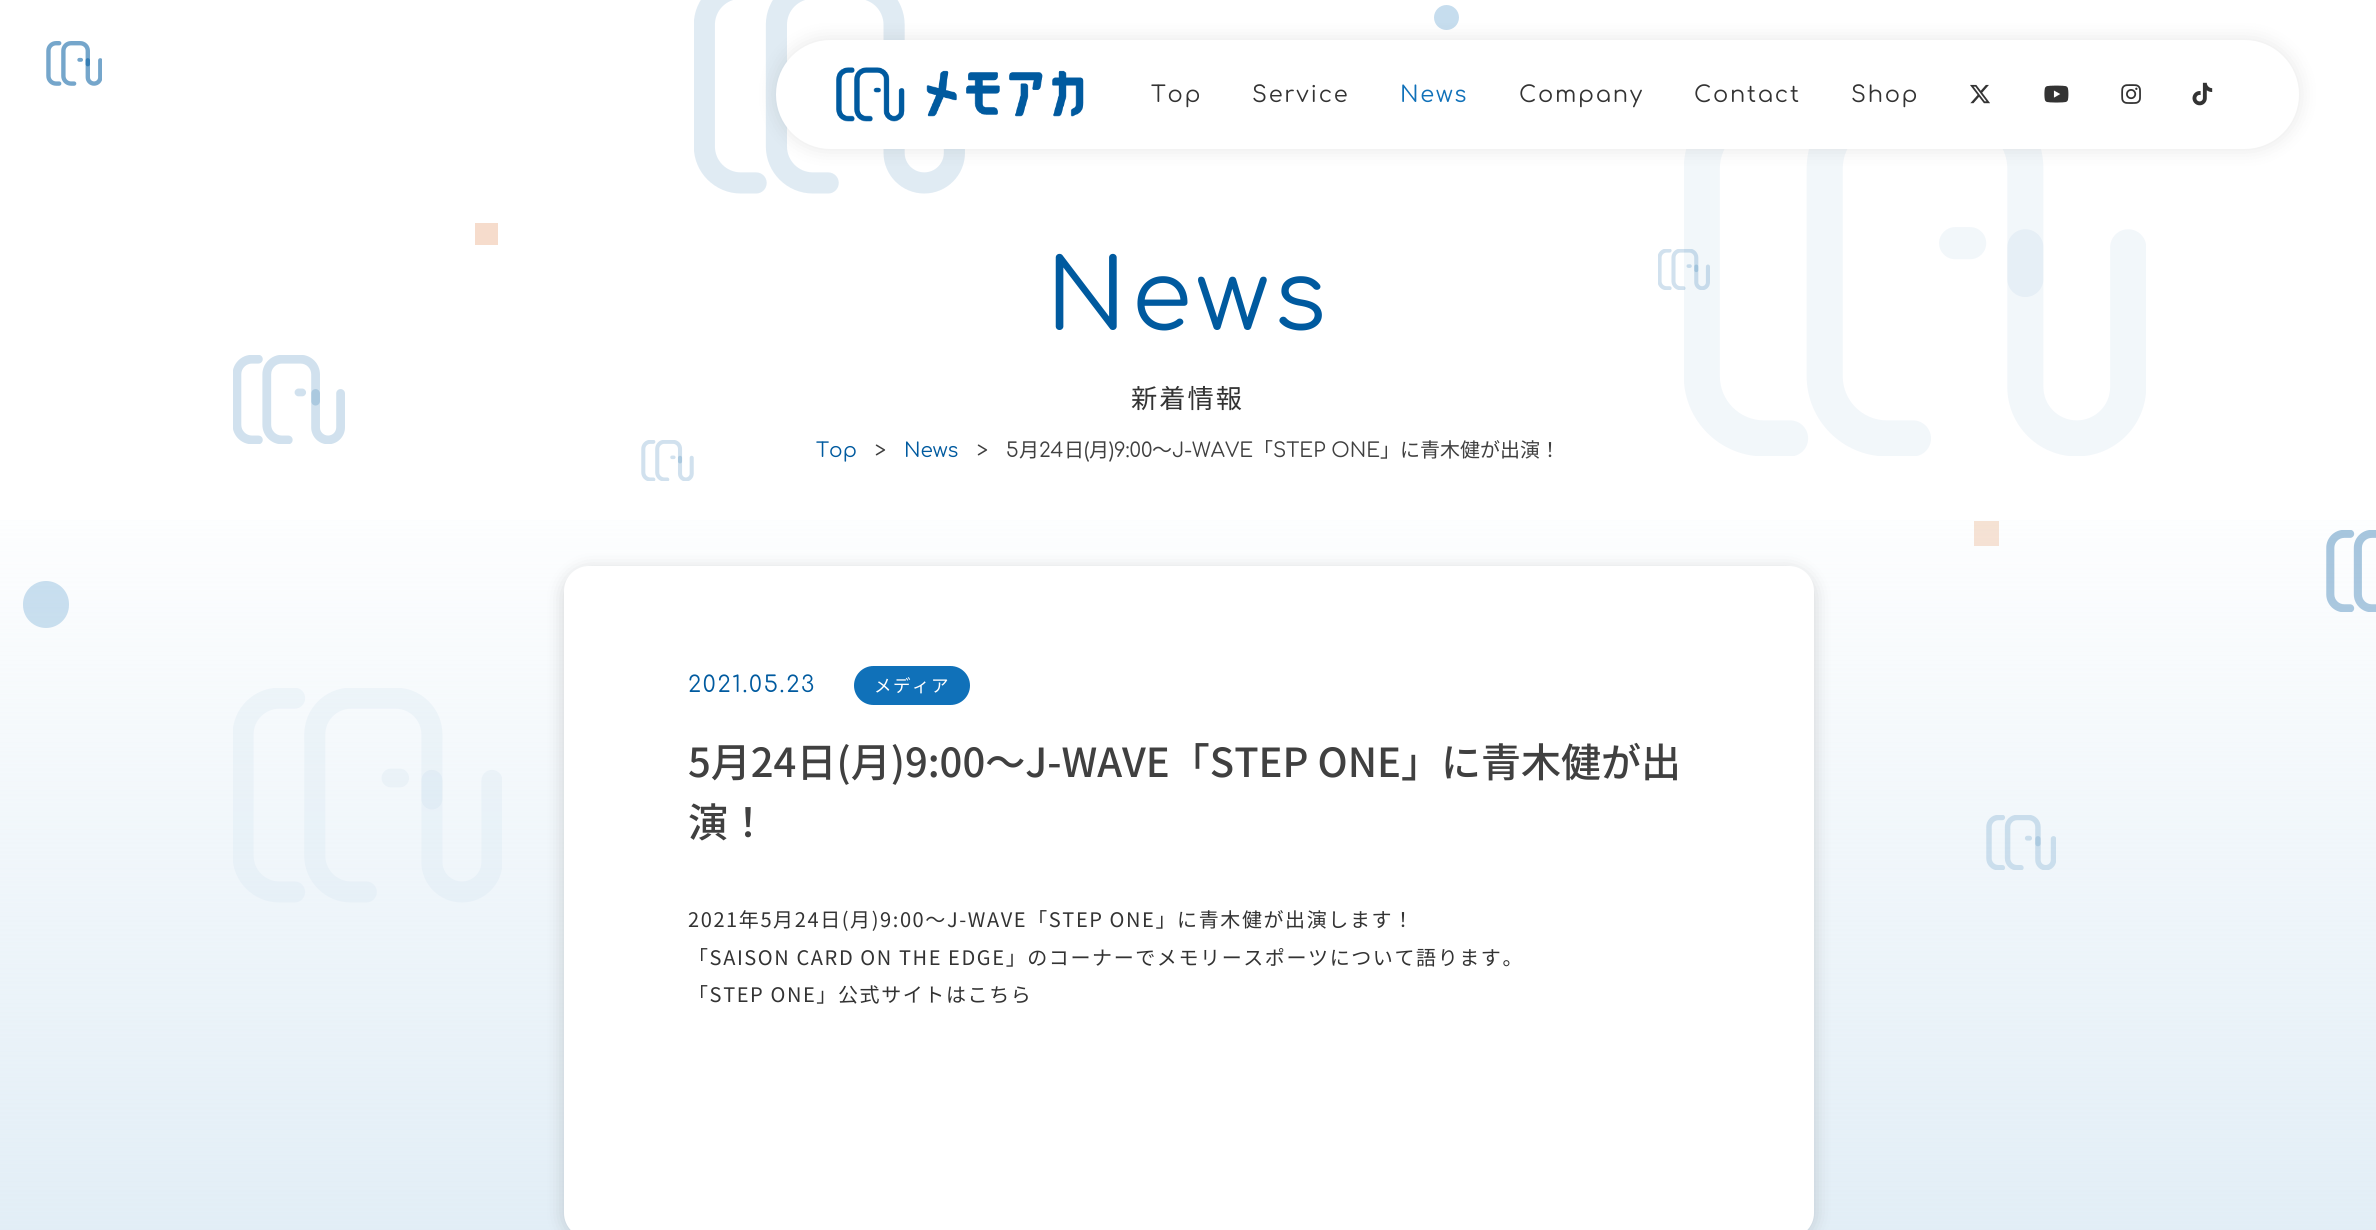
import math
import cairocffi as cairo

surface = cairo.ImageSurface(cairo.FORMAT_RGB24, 2376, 1230)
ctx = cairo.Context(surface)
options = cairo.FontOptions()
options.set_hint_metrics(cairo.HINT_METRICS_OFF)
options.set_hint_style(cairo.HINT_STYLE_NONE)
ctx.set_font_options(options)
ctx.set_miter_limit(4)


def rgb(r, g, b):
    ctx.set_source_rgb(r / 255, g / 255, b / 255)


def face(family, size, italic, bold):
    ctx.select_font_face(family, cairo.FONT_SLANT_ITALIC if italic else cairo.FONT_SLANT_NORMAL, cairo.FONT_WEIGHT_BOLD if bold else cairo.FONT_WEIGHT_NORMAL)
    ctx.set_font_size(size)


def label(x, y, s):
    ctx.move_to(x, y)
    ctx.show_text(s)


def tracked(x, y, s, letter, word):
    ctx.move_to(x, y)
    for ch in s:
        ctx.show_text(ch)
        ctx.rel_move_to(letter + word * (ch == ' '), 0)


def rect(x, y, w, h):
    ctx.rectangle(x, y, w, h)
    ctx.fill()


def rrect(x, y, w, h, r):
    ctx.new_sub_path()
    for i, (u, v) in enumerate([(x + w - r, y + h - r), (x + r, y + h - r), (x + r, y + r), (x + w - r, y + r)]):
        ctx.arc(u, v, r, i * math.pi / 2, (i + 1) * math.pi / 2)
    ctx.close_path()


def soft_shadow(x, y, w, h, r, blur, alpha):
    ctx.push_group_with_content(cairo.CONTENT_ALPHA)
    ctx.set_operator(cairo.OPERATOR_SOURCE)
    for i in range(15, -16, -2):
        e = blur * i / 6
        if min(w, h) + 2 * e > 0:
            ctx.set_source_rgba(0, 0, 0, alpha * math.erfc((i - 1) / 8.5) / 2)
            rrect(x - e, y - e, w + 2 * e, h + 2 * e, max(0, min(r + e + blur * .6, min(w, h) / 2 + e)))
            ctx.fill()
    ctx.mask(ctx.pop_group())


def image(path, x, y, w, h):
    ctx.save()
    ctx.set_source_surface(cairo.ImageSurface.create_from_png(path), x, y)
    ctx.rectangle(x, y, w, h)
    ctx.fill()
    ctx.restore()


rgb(255, 255, 255)
ctx.paint()
image('image5.png', 694, 0, 271, 194)
rgb(198, 221, 238)
ctx.arc(1446.5, 17.5, 12.5, 0, 2 * math.pi)
ctx.fill()
image('image7.png', 1684, 149, 462, 307)
rgb(0, 0, 0)
soft_shadow(776, 40, 1523, 109, 54.5, 9.5, 0.1)
rgb(255, 255, 255)
rrect(776, 40, 1523, 109, 54.5)
ctx.fill()
image('image0.png', 836, 67, 248, 55)
face('Comfortaa', 22.5, 0, 0)
rgb(51, 51, 51)
tracked(1151, 102, 'Top', 1.75, 0)
tracked(1252, 102, 'Service', 1.75, 0)
rgb(16, 113, 185)
tracked(1400, 102, 'News', 1.75, 0)
rgb(51, 51, 51)
tracked(1519, 102, 'Company', 1.75, 0)
tracked(1694, 102, 'Contact', 1.75, 0)
tracked(1851, 102, 'Shop', 1.75, 0)
image('image1.png', 1970, 84, 20, 20)
image('image2.png', 2044, 85, 25, 18)
image('image3.png', 2121, 84, 20, 20)
image('image4.png', 2192, 82, 21, 24)
image('image6.png', 46, 41, 56, 45)
rgb(246, 220, 204)
rect(475, 223, 23, 22)
image('image8.png', 1658, 249, 52, 41)
image('image9.png', 233, 355, 112, 89)
image('image10.png', 641, 440, 53, 41)
rgb(198, 221, 238)
rrect(23, 581, 46, 47, 23)
ctx.fill()
rgb(247, 225, 210)
rect(1974, 521, 25, 25)
image('image11.png', 2326, 530, 50, 82)
image('image12.png', 233, 688, 269, 215)
image('image13.png', 1986, 815, 70, 55)
face('Comfortaa', 97.5, 0, 0)
rgb(0, 90, 159)
tracked(1046, 330, 'News', 5, 0)
face('Noto Sans JP', 26.25, 0, 0)
rgb(51, 51, 51)
tracked(1131, 408, '新着情報', 2, 0)
face('Comfortaa', 20, 0, 0)
rgb(0, 90, 159)
label(816, 457, 'Top')
rgb(64, 64, 64)
label(875, 457, '>')
rgb(0, 90, 159)
label(904, 457, 'News')
rgb(64, 64, 64)
label(977, 457, '>')
label(1006, 457, '5')
face('Noto Sans JP', 20, 0, 0)
label(1019, 457, '月')
face('Comfortaa', 20, 0, 0)
label(1039, 457, '24')
face('Noto Sans JP', 20, 0, 0)
label(1064, 457, '日')
face('Comfortaa', 20, 0, 0)
label(1084, 457, '(')
face('Noto Sans JP', 20, 0, 0)
label(1089, 457, '月')
face('Comfortaa', 20, 0, 0)
label(1109, 457, ')9:00')
face('Noto Sans JP', 20, 0, 0)
label(1152, 457, '〜')
face('Comfortaa', 20, 0, 0)
label(1172, 457, 'J-WAVE')
face('Noto Sans JP', 20, 0, 0)
label(1253, 457, '「')
face('Comfortaa', 20, 0, 0)
label(1273, 457, 'STEP ONE')
face('Noto Sans JP', 20, 0, 0)
label(1380, 457, '」に青木健が出演！')
gradient = cairo.LinearGradient(1188, 466, 1188, 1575)
gradient.add_color_stop_rgba(0, 0.835, 0.902, 0.949, 0)
gradient.add_color_stop_rgba(1, 0.835, 0.902, 0.949, 1)
ctx.set_source(gradient)
rect(0, 520, 2376, 710)
rgb(0, 0, 0)
soft_shadow(564, 570, 1250, 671, 25, 9.5, 0.16)
rgb(255, 255, 255)
rrect(564, 566, 1250, 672, 25)
ctx.fill()
face('Comfortaa', 22.5, 0, 0)
rgb(0, 90, 159)
tracked(688, 692, '2021.05.23', 1.75, 0)
rgb(16, 113, 185)
rrect(854, 666, 116, 39, 19.5)
ctx.fill()
face('Noto Sans JP', 17.5, 0, 0)
rgb(255, 255, 255)
tracked(874, 692, 'メディア', 1.5, 0)
face('Noto Sans JP Medium', 40, 0, 0)
rgb(64, 64, 64)
label(688, 777, '5月24日(月)9:00〜J-WAVE「STEP ONE」に青木健が出')
label(688, 837, '演！')
face('Noto Sans JP', 20, 0, 0)
rgb(51, 51, 51)
tracked(688, 927, '2021年5月24日(月)9:00〜J-WAVE「STEP ONE」に青木健が出演します！', 1.6, 0)
tracked(688, 965, '「SAISON CARD ON THE EDGE」のコーナーでメモリースポーツについて語ります。', 1.6, 0)
tracked(688, 1002, '「STEP ONE」公式サイトはこちら', 1.6, 0)
surface.write_to_png('render.png')
